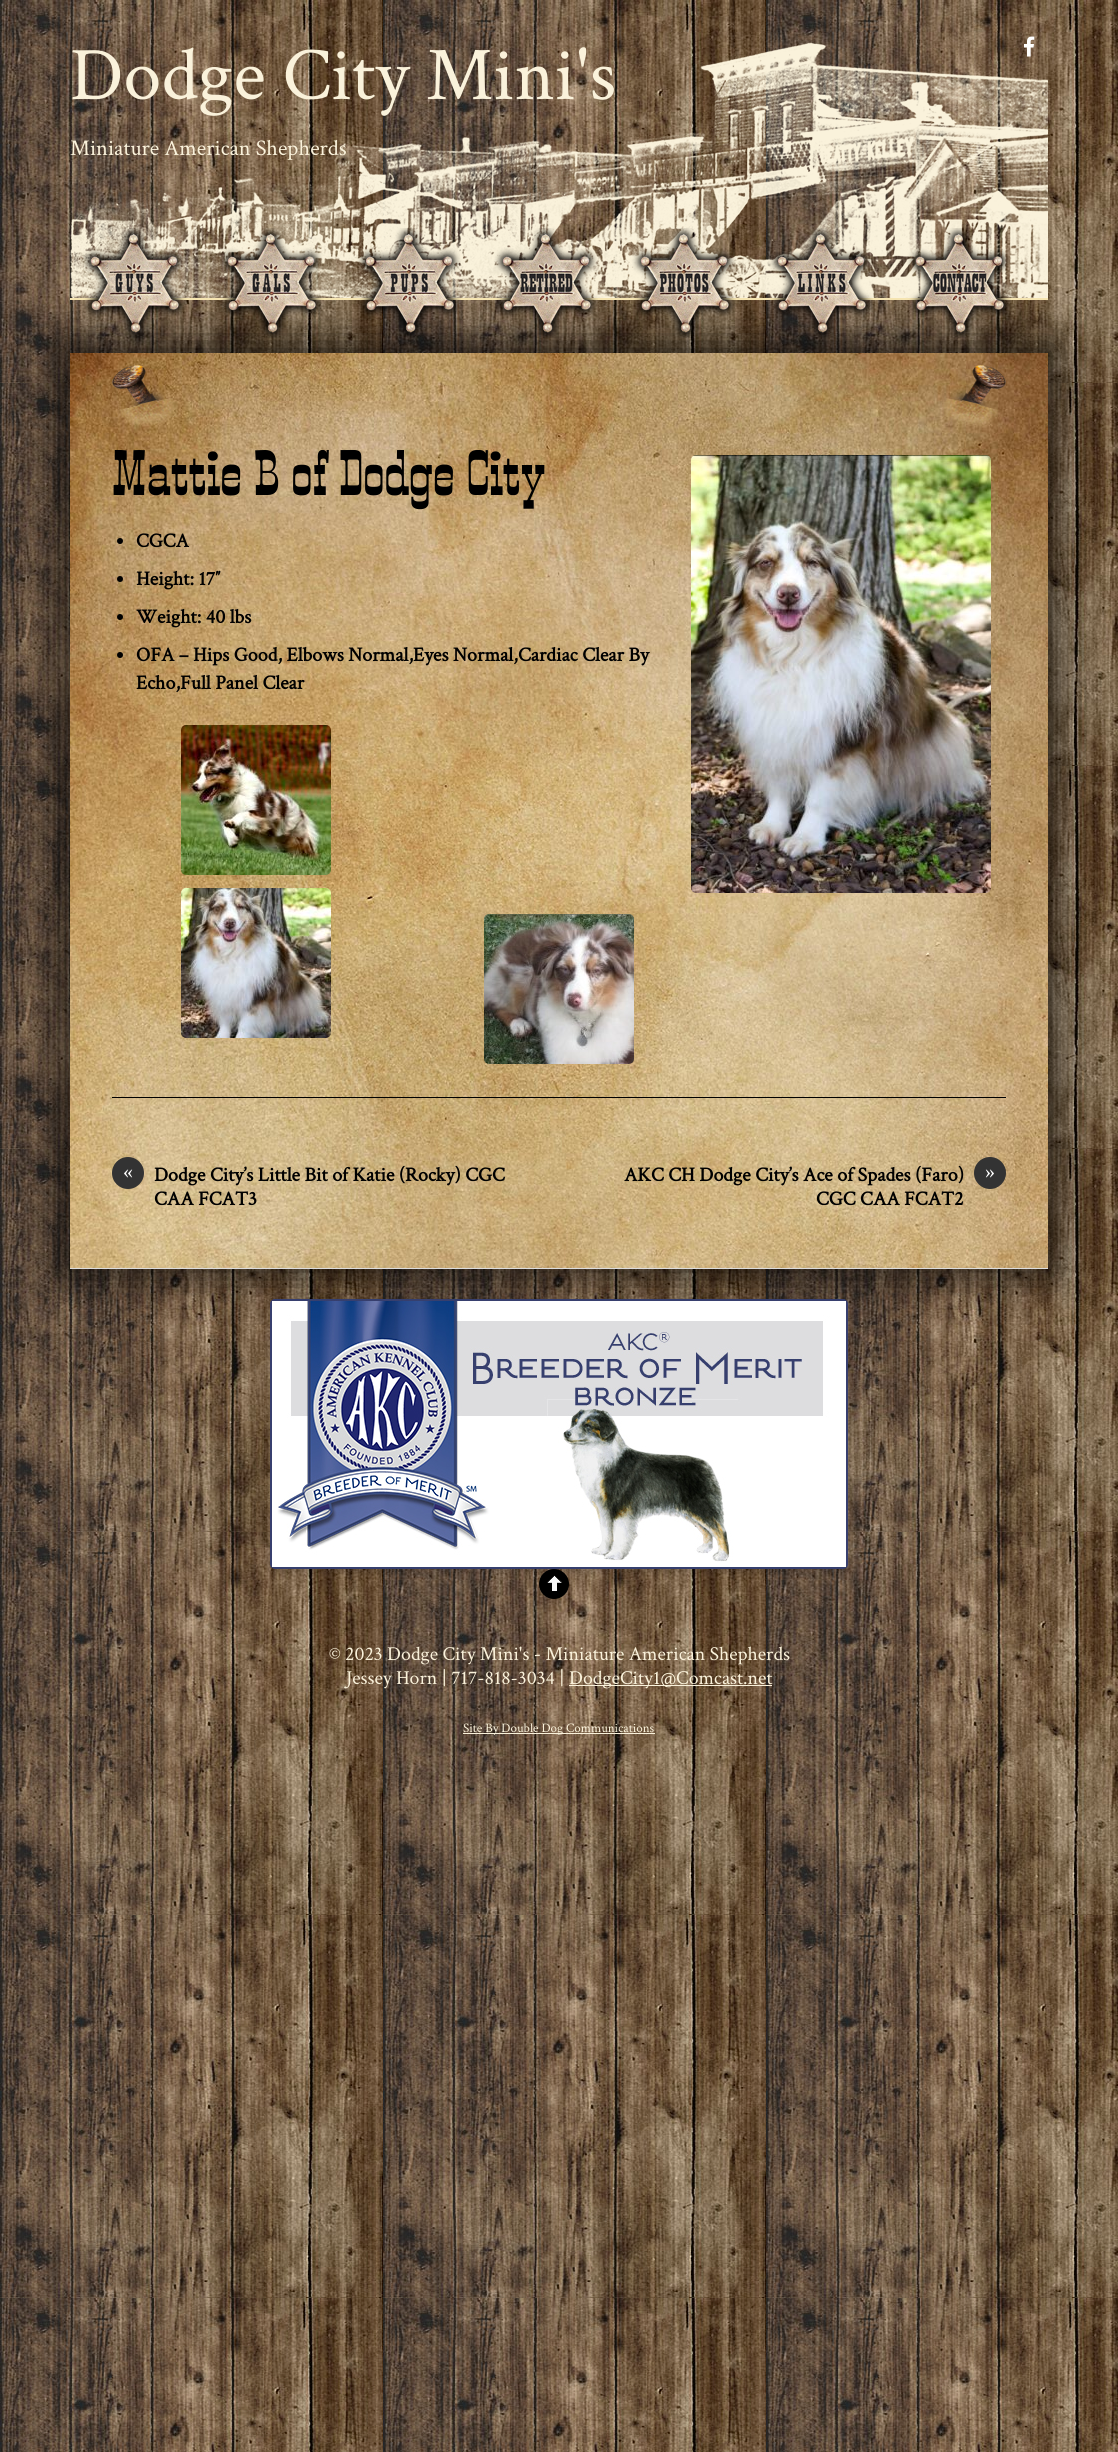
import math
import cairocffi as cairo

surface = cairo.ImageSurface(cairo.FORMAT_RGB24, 1118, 2452)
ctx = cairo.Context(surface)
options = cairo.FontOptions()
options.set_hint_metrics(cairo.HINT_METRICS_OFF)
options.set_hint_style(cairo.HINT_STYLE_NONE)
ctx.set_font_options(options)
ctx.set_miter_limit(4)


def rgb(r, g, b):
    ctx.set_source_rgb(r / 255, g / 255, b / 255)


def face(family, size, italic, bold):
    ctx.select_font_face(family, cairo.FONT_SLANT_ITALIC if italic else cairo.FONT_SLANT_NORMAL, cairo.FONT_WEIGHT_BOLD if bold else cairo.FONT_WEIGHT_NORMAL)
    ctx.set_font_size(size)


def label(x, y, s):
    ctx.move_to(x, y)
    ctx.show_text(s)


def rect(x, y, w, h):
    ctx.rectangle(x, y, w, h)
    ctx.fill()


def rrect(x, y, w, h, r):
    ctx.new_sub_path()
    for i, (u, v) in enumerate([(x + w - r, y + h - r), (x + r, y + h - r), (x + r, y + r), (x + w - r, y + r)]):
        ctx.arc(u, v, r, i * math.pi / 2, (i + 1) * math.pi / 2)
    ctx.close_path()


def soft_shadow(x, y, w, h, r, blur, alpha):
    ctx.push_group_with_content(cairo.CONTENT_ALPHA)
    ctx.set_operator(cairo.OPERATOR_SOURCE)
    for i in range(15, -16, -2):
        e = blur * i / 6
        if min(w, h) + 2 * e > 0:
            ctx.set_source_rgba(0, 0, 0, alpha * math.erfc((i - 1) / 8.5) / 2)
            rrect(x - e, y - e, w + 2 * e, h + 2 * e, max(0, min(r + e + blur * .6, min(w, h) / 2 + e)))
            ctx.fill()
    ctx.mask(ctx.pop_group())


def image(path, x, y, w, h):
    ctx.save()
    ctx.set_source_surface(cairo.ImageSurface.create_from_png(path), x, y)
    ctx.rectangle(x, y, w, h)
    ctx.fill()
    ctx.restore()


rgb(255, 255, 255)
ctx.paint()
image('image0.png', 0, 0, 1118, 2452)
rgb(0, 0, 0)
soft_shadow(61, 344, 996, 933, 0, 22, 0.75)
image('image1.png', 70, 33, 978, 265)
rgb(245, 228, 177)
rect(70, 298, 978, 2)
face('Crimson Text', 76, 0, 0)
rgb(250, 242, 219)
label(70, 99, 'Dodge City Mini\'s')
face('Crimson Text', 22.4, 0, 0)
label(70, 155, 'Miniature American Shepherds')
image('image2.png', 1024, 36, 11, 21)
image('image3.png', 82, 228, 105, 110)
image('image4.png', 220, 228, 104, 110)
image('image5.png', 357, 228, 104, 110)
image('image6.png', 494, 228, 104, 110)
image('image7.png', 632, 228, 104, 110)
image('image8.png', 769, 228, 104, 110)
image('image9.png', 907, 228, 104, 110)
image('image10.png', 70, 353, 978, 915)
image('image11.png', 112, 365, 894, 63)
rgb(0, 0, 0)
rect(112, 1097, 894, 1)
face('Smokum', 60, 0, 0)
label(112, 495, 'Mattie B of Dodge City')
ctx.new_path()
ctx.arc(120, 541, 3, 0, 2 * math.pi)
ctx.fill()
face('Crimson Text', 20, 0, 1)
label(136, 547, 'CGCA')
ctx.new_path()
ctx.arc(120, 579, 3, 0, 2 * math.pi)
ctx.fill()
label(136, 585, 'Height: 17″')
ctx.new_path()
ctx.arc(120, 617, 3, 0, 2 * math.pi)
ctx.fill()
label(136, 623, 'Weight: 40 lbs')
ctx.new_path()
ctx.arc(120, 655, 3, 0, 2 * math.pi)
ctx.fill()
label(136, 661, 'OFA – Hips Good, Elbows Normal,Eyes Normal,Cardiac Clear By')
label(136, 689, 'Echo,Full Panel Clear')
image('image12.png', 181, 725, 150, 150)
image('image13.png', 181, 888, 150, 150)
image('image14.png', 484, 914, 150, 150)
image('image15.png', 691, 455, 300, 438)
rgb(51, 51, 51)
ctx.arc(128, 1173, 16, 0, 2 * math.pi)
ctx.fill()
face('Liberation Serif', 20, 0, 0)
rgb(255, 255, 255)
label(123, 1178, '«')
face('Crimson Text', 20, 0, 1)
rgb(0, 0, 0)
label(154, 1181, 'Dodge City’s Little Bit of Katie (Rocky) CGC')
label(154, 1205, 'CAA FCAT3')
label(624, 1181, 'AKC CH Dodge City’s Ace of Spades (Faro)')
rgb(51, 51, 51)
ctx.new_path()
ctx.arc(990, 1173, 16, 0, 2 * math.pi)
ctx.fill()
face('Liberation Serif', 20, 0, 0)
rgb(255, 255, 255)
label(985, 1178, '»')
face('Crimson Text', 20, 0, 1)
rgb(0, 0, 0)
label(816, 1205, 'CGC CAA FCAT2')
rgb(221, 221, 221)
rect(70, 1268, 978, 1)
rgb(0, 0, 0)
ctx.new_path()
ctx.arc(554, 1584, 15, 0, 2 * math.pi)
ctx.fill()
image('image17.png', 547, 1575, 15, 16)
rgb(0, 0, 0)
soft_shadow(268, 1298, 582, 274, 7, 4, 0.15)
image('image16.png', 270, 1299, 578, 270)
face('Crimson Text', 19.8, 0, 0)
rgb(250, 242, 219)
label(329, 1660, '© 2023 Dodge City Mini\'s - Miniature American Shepherds')
label(346, 1684, 'Jessey Horn | 717-818-3034 |')
rect(569, 1685, 203, 1)
label(569, 1684, 'DodgeCity1@Comcast.net')
rect(463, 1733, 192, 1)
face('Crimson Text', 13, 0, 0)
label(463, 1732, 'Site By Double Dog Communications')
surface.write_to_png('render.png')
